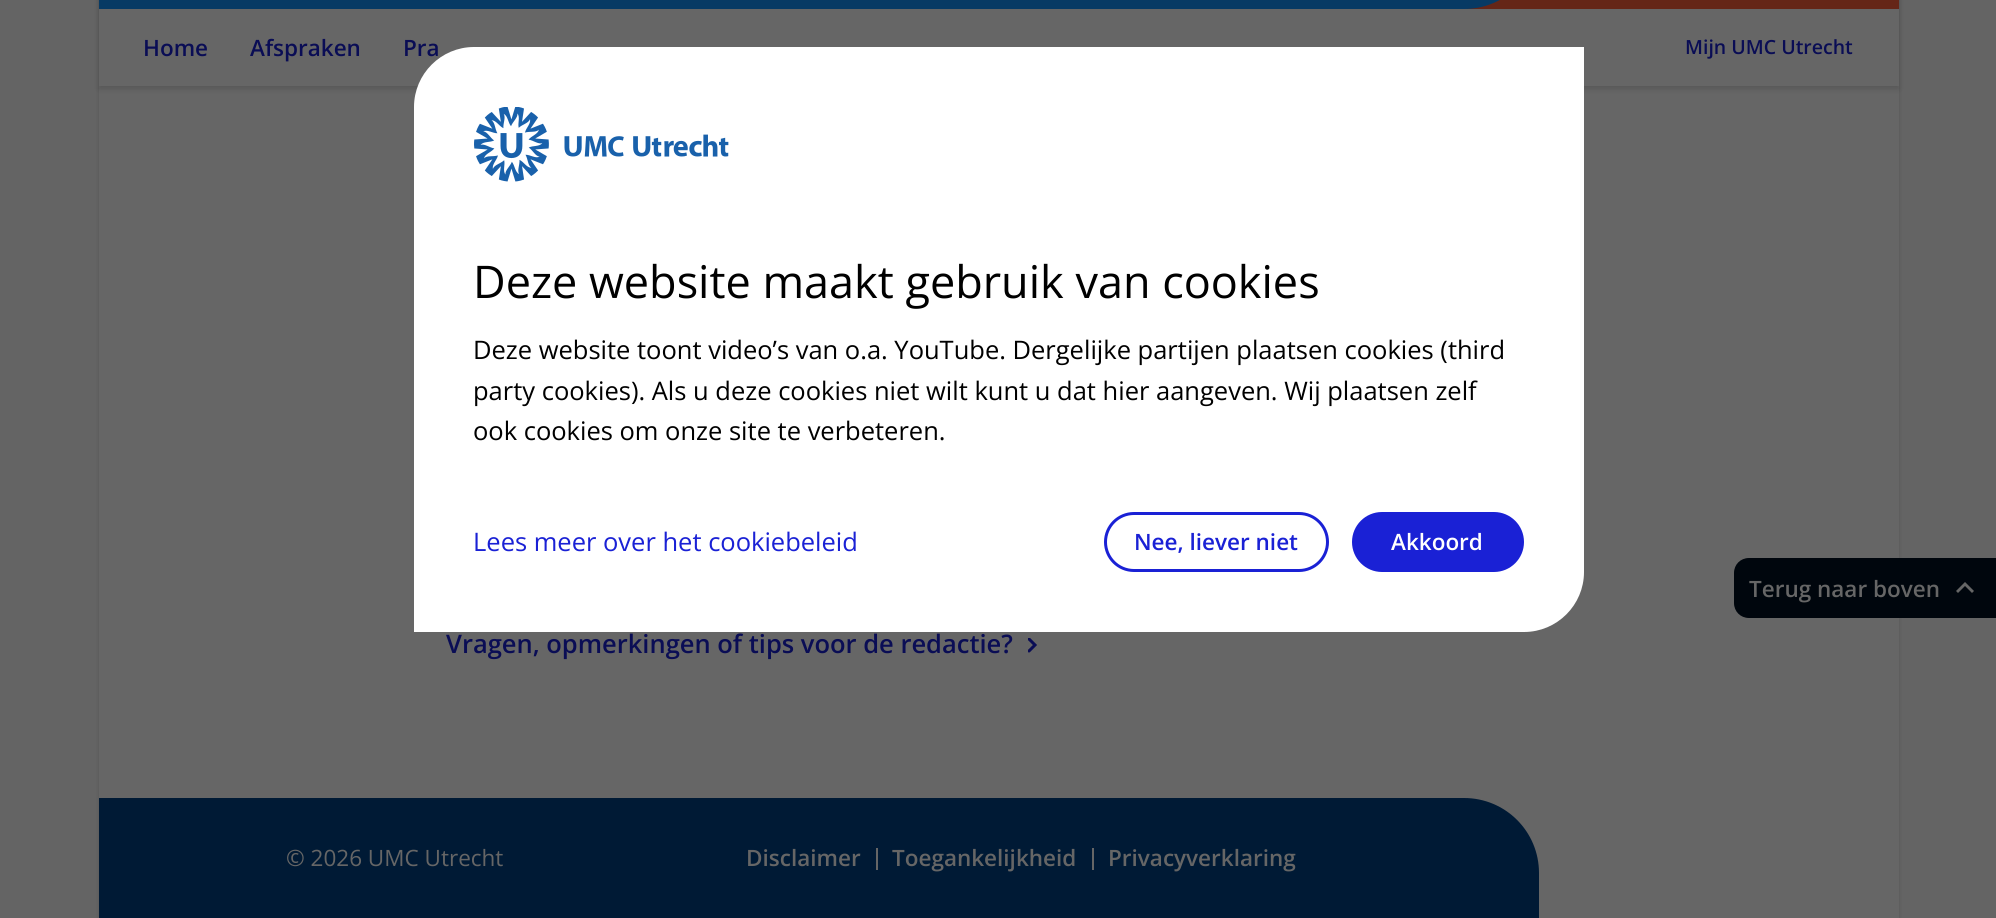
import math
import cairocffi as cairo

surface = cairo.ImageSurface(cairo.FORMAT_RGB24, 1996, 918)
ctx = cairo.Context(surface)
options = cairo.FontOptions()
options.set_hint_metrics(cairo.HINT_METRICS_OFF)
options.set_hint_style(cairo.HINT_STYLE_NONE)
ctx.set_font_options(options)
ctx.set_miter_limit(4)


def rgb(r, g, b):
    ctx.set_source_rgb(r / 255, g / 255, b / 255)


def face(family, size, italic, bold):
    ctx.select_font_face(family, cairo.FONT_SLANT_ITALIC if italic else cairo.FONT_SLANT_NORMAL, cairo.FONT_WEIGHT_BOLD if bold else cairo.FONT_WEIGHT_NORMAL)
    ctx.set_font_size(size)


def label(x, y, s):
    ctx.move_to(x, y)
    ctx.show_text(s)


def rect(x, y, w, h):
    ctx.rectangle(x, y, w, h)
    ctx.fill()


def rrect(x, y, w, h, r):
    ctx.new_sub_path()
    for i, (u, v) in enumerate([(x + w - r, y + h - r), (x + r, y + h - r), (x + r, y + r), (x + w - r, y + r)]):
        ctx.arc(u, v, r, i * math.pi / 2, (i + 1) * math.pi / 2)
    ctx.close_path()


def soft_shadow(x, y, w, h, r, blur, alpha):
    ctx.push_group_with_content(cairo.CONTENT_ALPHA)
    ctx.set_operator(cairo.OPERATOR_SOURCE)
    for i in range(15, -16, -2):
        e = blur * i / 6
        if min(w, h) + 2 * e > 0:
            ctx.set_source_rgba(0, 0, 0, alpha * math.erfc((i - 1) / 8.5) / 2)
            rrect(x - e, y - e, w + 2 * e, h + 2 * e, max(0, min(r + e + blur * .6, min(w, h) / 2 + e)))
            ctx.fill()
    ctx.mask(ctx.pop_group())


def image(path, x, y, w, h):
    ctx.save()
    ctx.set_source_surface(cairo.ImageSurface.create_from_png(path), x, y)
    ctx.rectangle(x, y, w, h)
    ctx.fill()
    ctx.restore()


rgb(100, 100, 100)
ctx.paint()
rgb(0, 0, 0)
soft_shadow(99, -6, 1800, 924, 0, 2, 0.15)
rgb(102, 102, 102)
rect(99, 86, 1800, 832)
rgb(0, 0, 0)
soft_shadow(99, -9, 1800, 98, 0, 3, 0.15)
rgb(101, 38, 23)
rect(1465, 0, 434, 9)
rgb(7, 58, 100)
ctx.new_path()
ctx.move_to(99, -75)
ctx.line_to(1539, -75)
ctx.line_to(1539, -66)
ctx.curve_to(1539, -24.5, 1505.5, 9, 1464, 9)
ctx.line_to(99, 9)
ctx.close_path()
ctx.fill()
rgb(102, 102, 102)
rect(99, 9, 1800, 77)
face('Open Sans SemiBold', 22.5, 0, 0)
rgb(10, 13, 85)
label(143, 56, 'Home')
label(250, 56, 'Afspraken')
label(403, 56, 'Pra')
face('Open Sans SemiBold', 19.5, 0, 0)
label(1685, 54, 'Mijn UMC Utrecht')
rgb(255, 255, 255)
ctx.new_path()
ctx.move_to(474, 47)
ctx.line_to(1584, 47)
ctx.line_to(1584, 572)
ctx.curve_to(1584, 605, 1557, 632, 1524, 632)
ctx.line_to(414, 632)
ctx.line_to(414, 107)
ctx.curve_to(414, 74, 441, 47, 474, 47)
ctx.close_path()
ctx.fill()
image('image0.png', 474, 107, 255, 75)
face('Open Sans', 45, 0, 0)
rgb(0, 0, 0)
label(473, 298, 'Deze website maakt gebruik van cookies')
face('Open Sans', 25.5, 0, 0)
label(473, 359, 'Deze website toont video’s van o.a. YouTube. Dergelijke partijen plaatsen cookies (third')
label(473, 400, 'party cookies). Als u deze cookies niet wilt kunt u dat hier aangeven. Wij plaatsen zelf')
label(473, 440, 'ook cookies om onze site te verbeteren.')
rgb(26, 33, 213)
label(473, 551, 'Lees meer over het cookiebeleid')
rrect(1105.5, 513.5, 222, 57, 28.5)
ctx.set_line_width(3)
ctx.stroke()
face('Open Sans SemiBold', 22.5, 0, 0)
label(1134, 550, 'Nee, liever niet')
rrect(1352, 512, 172, 60, 30)
ctx.fill()
rgb(255, 255, 255)
label(1391, 550, 'Akkoord')
rgb(0, 6, 13)
ctx.new_path()
ctx.move_to(1749, 558)
ctx.line_to(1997, 558)
ctx.line_to(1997, 618)
ctx.line_to(1749, 618)
ctx.curve_to(1740.5, 618, 1734, 611.5, 1734, 603)
ctx.line_to(1734, 573)
ctx.curve_to(1734, 564.5, 1740.5, 558, 1749, 558)
ctx.close_path()
ctx.fill()
rgb(102, 102, 102)
ctx.set_fill_rule(cairo.FILL_RULE_EVEN_ODD)
ctx.new_path()
ctx.move_to(1965, 582)
ctx.line_to(1956, 591)
ctx.line_to(1958, 593)
ctx.line_to(1965, 586)
ctx.line_to(1972, 593)
ctx.line_to(1974, 591)
ctx.close_path()
ctx.fill()
label(1749, 597, 'Terug naar boven')
face('Open Sans SemiBold', 25.5, 0, 0)
rgb(10, 13, 85)
label(446, 653, 'Vragen, opmerkingen of tips voor de redactie?')
ctx.save()
ctx.set_fill_rule(cairo.FILL_RULE_WINDING)
ctx.rectangle(1028, 638, 10, 15)
ctx.clip()
ctx.new_path()
ctx.move_to(1029, 651)
ctx.line_to(1035, 645)
ctx.line_to(1029, 639)
ctx.set_line_cap(cairo.LINE_CAP_ROUND)
ctx.stroke()
ctx.restore()
rgb(0, 26, 53)
ctx.new_path()
ctx.move_to(99, 798)
ctx.line_to(1464, 798)
ctx.curve_to(1505.5, 798, 1539, 831.5, 1539, 873)
ctx.line_to(1539, 918)
ctx.line_to(99, 918)
ctx.close_path()
ctx.fill()
face('Open Sans', 22.5, 0, 0)
rgb(102, 102, 102)
label(286, 866, '© 2026 UMC Utrecht')
face('Open Sans SemiBold', 22.5, 0, 0)
label(746, 866, 'Disclaimer')
rect(876, 848, 2, 22)
label(892, 866, 'Toegankelijkheid')
rect(1092, 848, 2, 22)
label(1108, 866, 'Privacyverklaring')
surface.write_to_png('render.png')
